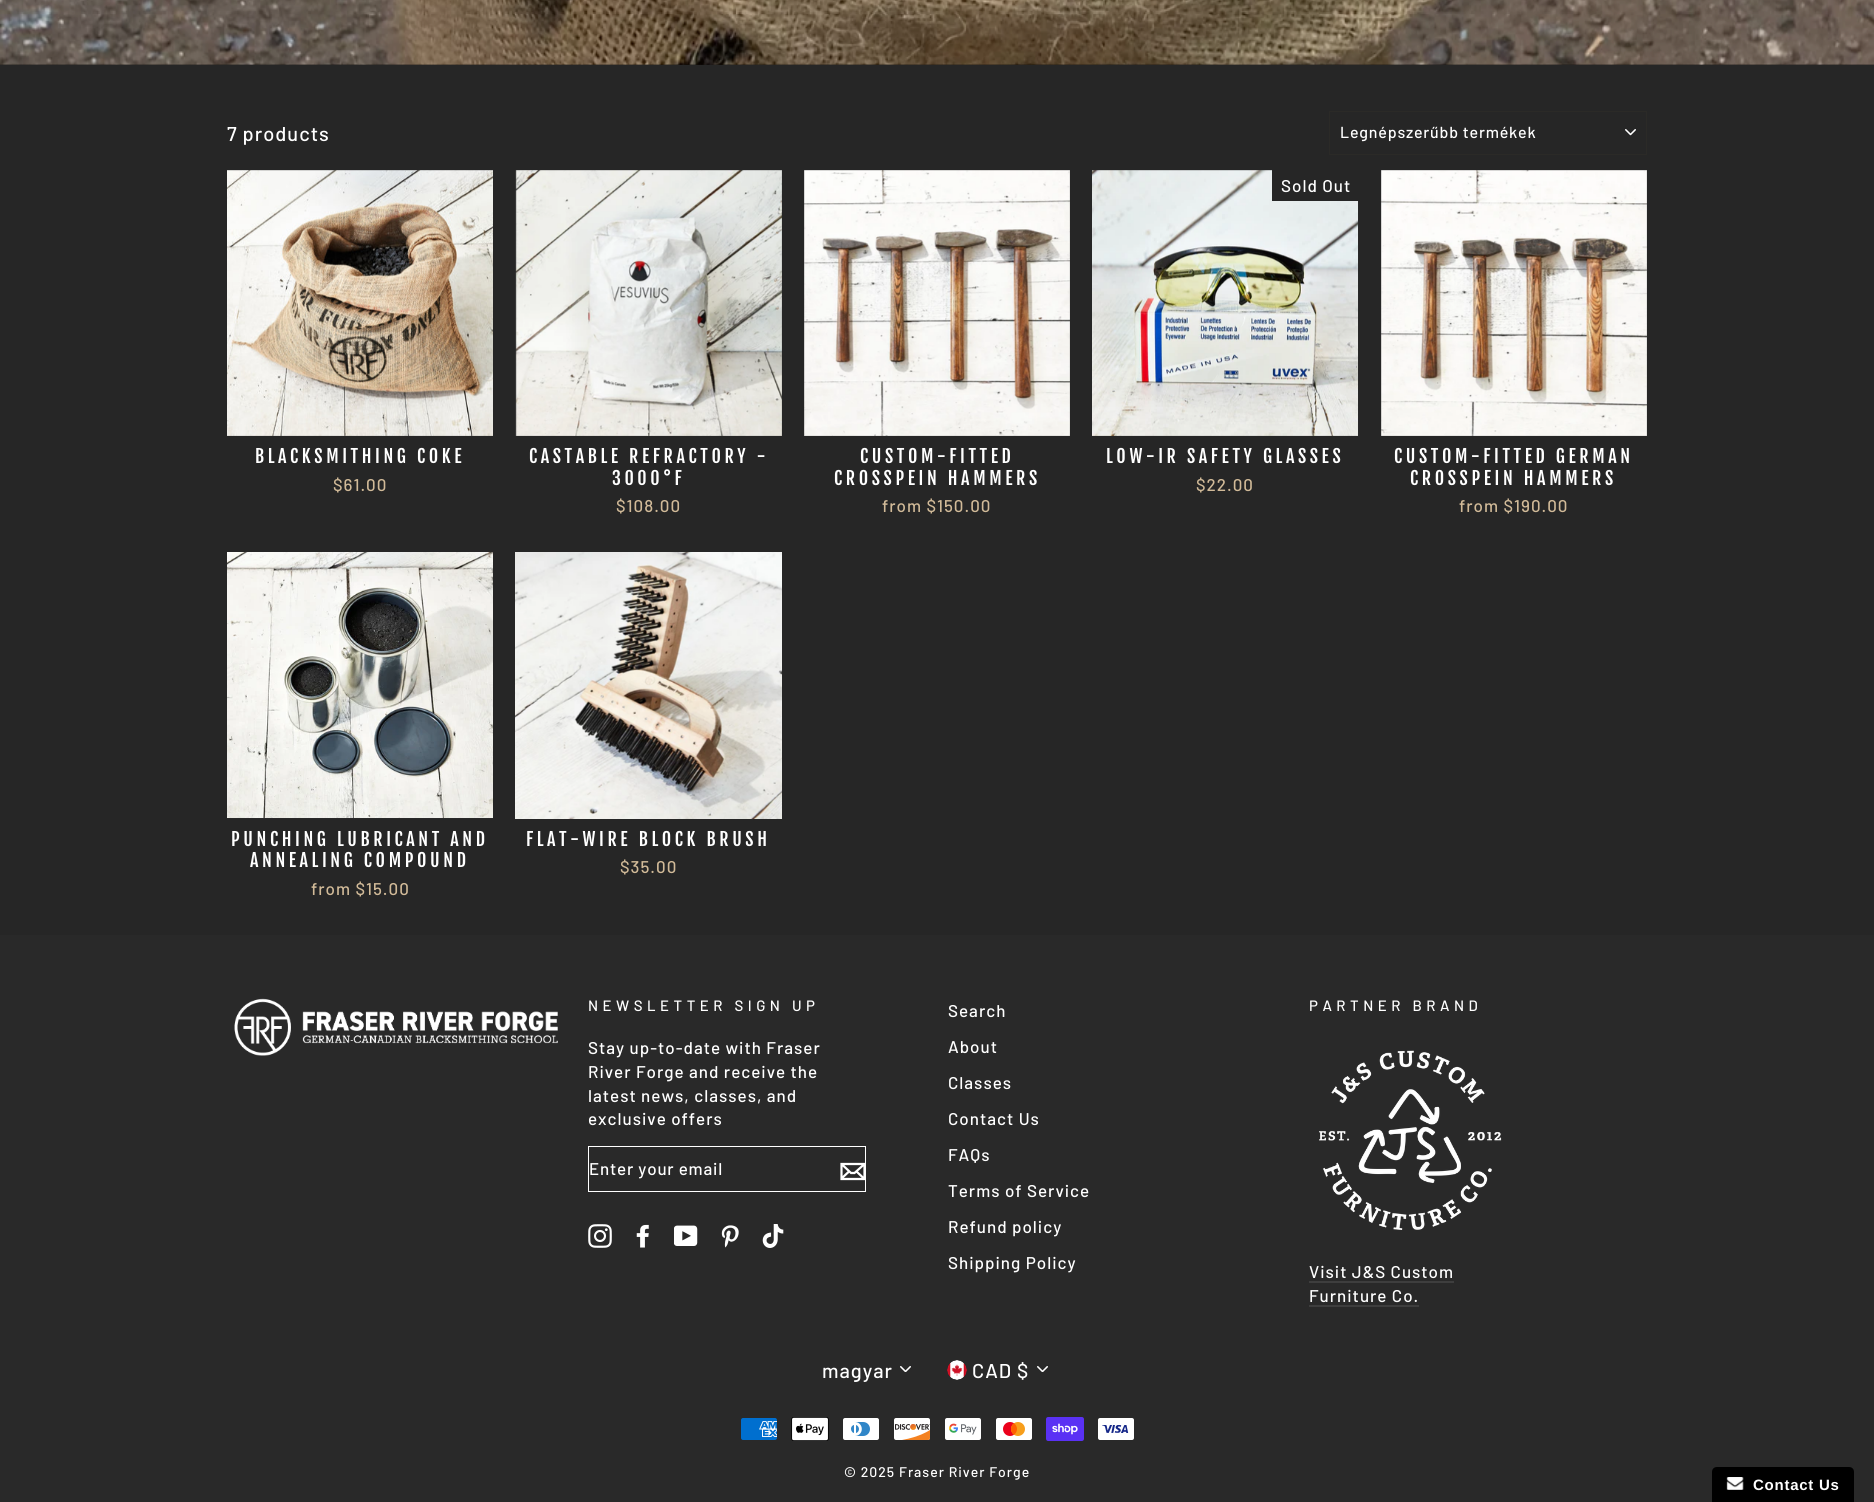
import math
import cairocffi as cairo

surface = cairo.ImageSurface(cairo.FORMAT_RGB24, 1874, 1502)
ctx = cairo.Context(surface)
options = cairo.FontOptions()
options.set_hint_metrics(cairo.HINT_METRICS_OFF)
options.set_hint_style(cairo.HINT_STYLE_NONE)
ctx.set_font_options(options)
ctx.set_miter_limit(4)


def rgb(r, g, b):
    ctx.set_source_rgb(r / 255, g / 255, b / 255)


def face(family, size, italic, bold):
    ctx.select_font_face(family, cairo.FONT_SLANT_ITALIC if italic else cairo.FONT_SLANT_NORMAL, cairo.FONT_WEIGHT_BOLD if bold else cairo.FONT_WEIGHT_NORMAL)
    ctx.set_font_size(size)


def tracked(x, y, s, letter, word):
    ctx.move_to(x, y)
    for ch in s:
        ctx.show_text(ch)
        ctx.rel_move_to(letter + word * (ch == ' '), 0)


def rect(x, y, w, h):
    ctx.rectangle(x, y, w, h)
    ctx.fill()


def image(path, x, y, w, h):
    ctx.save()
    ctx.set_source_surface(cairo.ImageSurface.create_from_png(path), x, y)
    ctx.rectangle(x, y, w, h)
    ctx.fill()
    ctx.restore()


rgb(38, 38, 38)
ctx.paint()
rgb(14, 14, 14)
rect(0, 64, 1874, 1)
image('image0.png', 0, 0, 1874, 65)
face('Barlow Medium', 20, 0, 0)
rgb(255, 255, 255)
tracked(227, 141, '7 products', 1, 0)
image('image1.png', 1625, 129, 11, 7)
ctx.rectangle(1329.5, 111.5, 317, 43)
rgb(43, 42, 39)
ctx.set_line_width(1)
ctx.stroke()
face('Barlow Medium', 16, 0, 0)
rgb(255, 255, 255)
tracked(1340, 138, 'Legnépszerűbb termékek', 0.8, 0)
image('image2.png', 227, 170, 266, 266)
face('Fjalla One', 18, 0, 0)
tracked(255, 463, 'BLACKSMITHING COKE', 3.6, 0)
face('Barlow Medium', 17, 0, 0)
rgb(209, 186, 152)
tracked(333, 491, '$61.00', 1, 0)
rgb(41, 41, 41)
rect(515, 170, 267, 266)
image('image3.png', 515, 170, 267, 266)
face('Fjalla One', 18, 0, 0)
rgb(255, 255, 255)
tracked(529, 463, 'CASTABLE REFRACTORY -', 3.6, 0)
tracked(612, 485, '3000°F', 3.6, 0)
face('Barlow Medium', 17, 0, 0)
rgb(209, 186, 152)
tracked(616, 512, '$108.00', 1, 0)
rgb(41, 41, 41)
rect(804, 170, 266, 266)
image('image4.png', 804, 170, 266, 266)
face('Fjalla One', 18, 0, 0)
rgb(255, 255, 255)
tracked(860, 463, 'CUSTOM-FITTED', 3.6, 0)
tracked(834, 485, 'CROSSPEIN HAMMERS', 3.6, 0)
face('Barlow Medium', 17, 0, 0)
rgb(209, 186, 152)
tracked(882, 512, 'from $150.00', 1, 0)
rgb(41, 41, 41)
rect(1092, 170, 267, 266)
image('image5.png', 1092, 170, 266, 266)
rgb(38, 38, 38)
rect(1272, 170, 87, 31)
rgb(255, 255, 255)
tracked(1281, 192, 'Sold Out', 1, 0)
face('Fjalla One', 18, 0, 0)
tracked(1106, 463, 'LOW-IR SAFETY GLASSES', 3.6, 0)
face('Barlow Medium', 17, 0, 0)
rgb(209, 186, 152)
tracked(1196, 491, '$22.00', 1, 0)
rgb(41, 41, 41)
rect(1381, 170, 266, 266)
image('image6.png', 1381, 170, 266, 266)
face('Fjalla One', 18, 0, 0)
rgb(255, 255, 255)
tracked(1394, 463, 'CUSTOM-FITTED GERMAN', 3.6, 0)
tracked(1410, 485, 'CROSSPEIN HAMMERS', 3.6, 0)
face('Barlow Medium', 17, 0, 0)
rgb(209, 186, 152)
tracked(1459, 512, 'from $190.00', 1, 0)
rgb(41, 41, 41)
rect(227, 818, 266, 1)
image('image7.png', 227, 552, 266, 266)
face('Fjalla One', 18, 0, 0)
rgb(255, 255, 255)
tracked(231, 846, 'PUNCHING LUBRICANT AND', 3.6, 0)
tracked(250, 867, 'ANNEALING COMPOUND', 3.6, 0)
face('Barlow Medium', 17, 0, 0)
rgb(209, 186, 152)
tracked(311, 895, 'from $15.00', 1, 0)
image('image8.png', 515, 552, 267, 267)
face('Fjalla One', 18, 0, 0)
rgb(255, 255, 255)
tracked(526, 846, 'FLAT-WIRE BLOCK BRUSH', 3.6, 0)
face('Barlow Medium', 17, 0, 0)
rgb(209, 186, 152)
tracked(620, 873, '$35.00', 1, 0)
rgb(41, 41, 41)
rect(0, 935, 1874, 567)
image('image9.png', 234, 998, 324, 58)
face('Barlow Medium', 15, 0, 0)
rgb(255, 255, 255)
tracked(588, 1011, 'NEWSLETTER SIGN UP', 4.5, 0)
face('Barlow Medium', 17, 0, 0)
tracked(588, 1054, 'Stay up-to-date with Fraser', 1, 0)
tracked(588, 1078, 'River Forge and receive the', 1, 0)
tracked(588, 1102, 'latest news, classes, and', 1, 0)
tracked(588, 1125, 'exclusive offers', 1, 0)
ctx.rectangle(588.5, 1146.5, 277, 45)
ctx.stroke()
tracked(589, 1175, 'Enter your email', 0.8, 0)
ctx.new_path()
ctx.move_to(864.5, 1179)
ctx.line_to(841.5, 1179)
ctx.line_to(841.5, 1164)
ctx.line_to(864.5, 1164)
ctx.close_path()
ctx.move_to(841.5, 1164)
ctx.line_to(851, 1173)
ctx.line_to(854.5, 1173)
ctx.line_to(864.5, 1164)
ctx.move_to(849, 1171.5)
ctx.line_to(841.5, 1178.5)
ctx.move_to(864.5, 1179)
ctx.line_to(856.5, 1171.5)
ctx.set_line_width(2.2)
ctx.stroke()
image('image10.png', 588, 1224, 24, 24)
image('image11.png', 636, 1224, 13, 24)
image('image12.png', 674, 1225, 24, 21)
image('image13.png', 721, 1225, 18, 23)
image('image14.png', 762, 1224, 22, 24)
tracked(948, 1017, 'Search', 1, 0)
tracked(948, 1053, 'About', 1, 0)
tracked(948, 1089, 'Classes', 1, 0)
tracked(948, 1125, 'Contact Us', 1, 0)
tracked(948, 1161, 'FAQs', 1, 0)
tracked(948, 1197, 'Terms of Service', 1, 0)
tracked(948, 1233, 'Refund policy', 1, 0)
tracked(948, 1269, 'Shipping Policy', 1, 0)
face('Barlow Medium', 15, 0, 0)
tracked(1309, 1011, 'PARTNER BRAND', 4.5, 0)
image('image15.png', 1319, 1050, 183, 180)
face('Barlow Medium', 17, 0, 0)
tracked(1309, 1278, 'Visit J&S Custom', 1, 0)
rgb(62, 62, 62)
rect(1309, 1281, 145, 2)
rgb(255, 255, 255)
tracked(1309, 1302, 'Furniture Co.', 1, 0)
rgb(62, 62, 62)
rect(1309, 1305, 110, 2)
image('image16.png', 900, 1366, 11, 6)
face('Barlow Medium', 20, 0, 0)
rgb(255, 255, 255)
tracked(822, 1378, 'magyar', 1, 0)
image('image16.png', 1037, 1366, 11, 6)
image('image17.png', 947, 1360, 20, 20)
tracked(972, 1378, 'CAD $', 1, 0)
image('image18.png', 741, 1418, 36, 22)
image('image19.png', 791, 1417, 38, 24)
image('image20.png', 843, 1418, 36, 22)
image('image21.png', 894, 1418, 36, 22)
image('image22.png', 945, 1418, 36, 22)
image('image23.png', 996, 1418, 36, 22)
image('image24.png', 1046, 1417, 38, 24)
image('image25.png', 1098, 1418, 36, 22)
face('Barlow Medium', 14, 0, 0)
tracked(844, 1477, '© 2025 Fraser River Forge', 1, 0)
rgb(0, 0, 0)
ctx.new_path()
ctx.move_to(1717, 1467)
ctx.line_to(1849, 1467)
ctx.curve_to(1852, 1467, 1854, 1469, 1854, 1472)
ctx.line_to(1854, 1502)
ctx.line_to(1712, 1502)
ctx.line_to(1712, 1472)
ctx.curve_to(1712, 1469, 1714, 1467, 1717, 1467)
ctx.close_path()
ctx.fill()
image('image26.png', 1726, 1477, 18, 13)
face('Liberation Sans', 15, 0, 1)
rgb(255, 255, 255)
tracked(1753, 1490, 'Contact Us', 0.75, 0)
surface.write_to_png('render.png')
